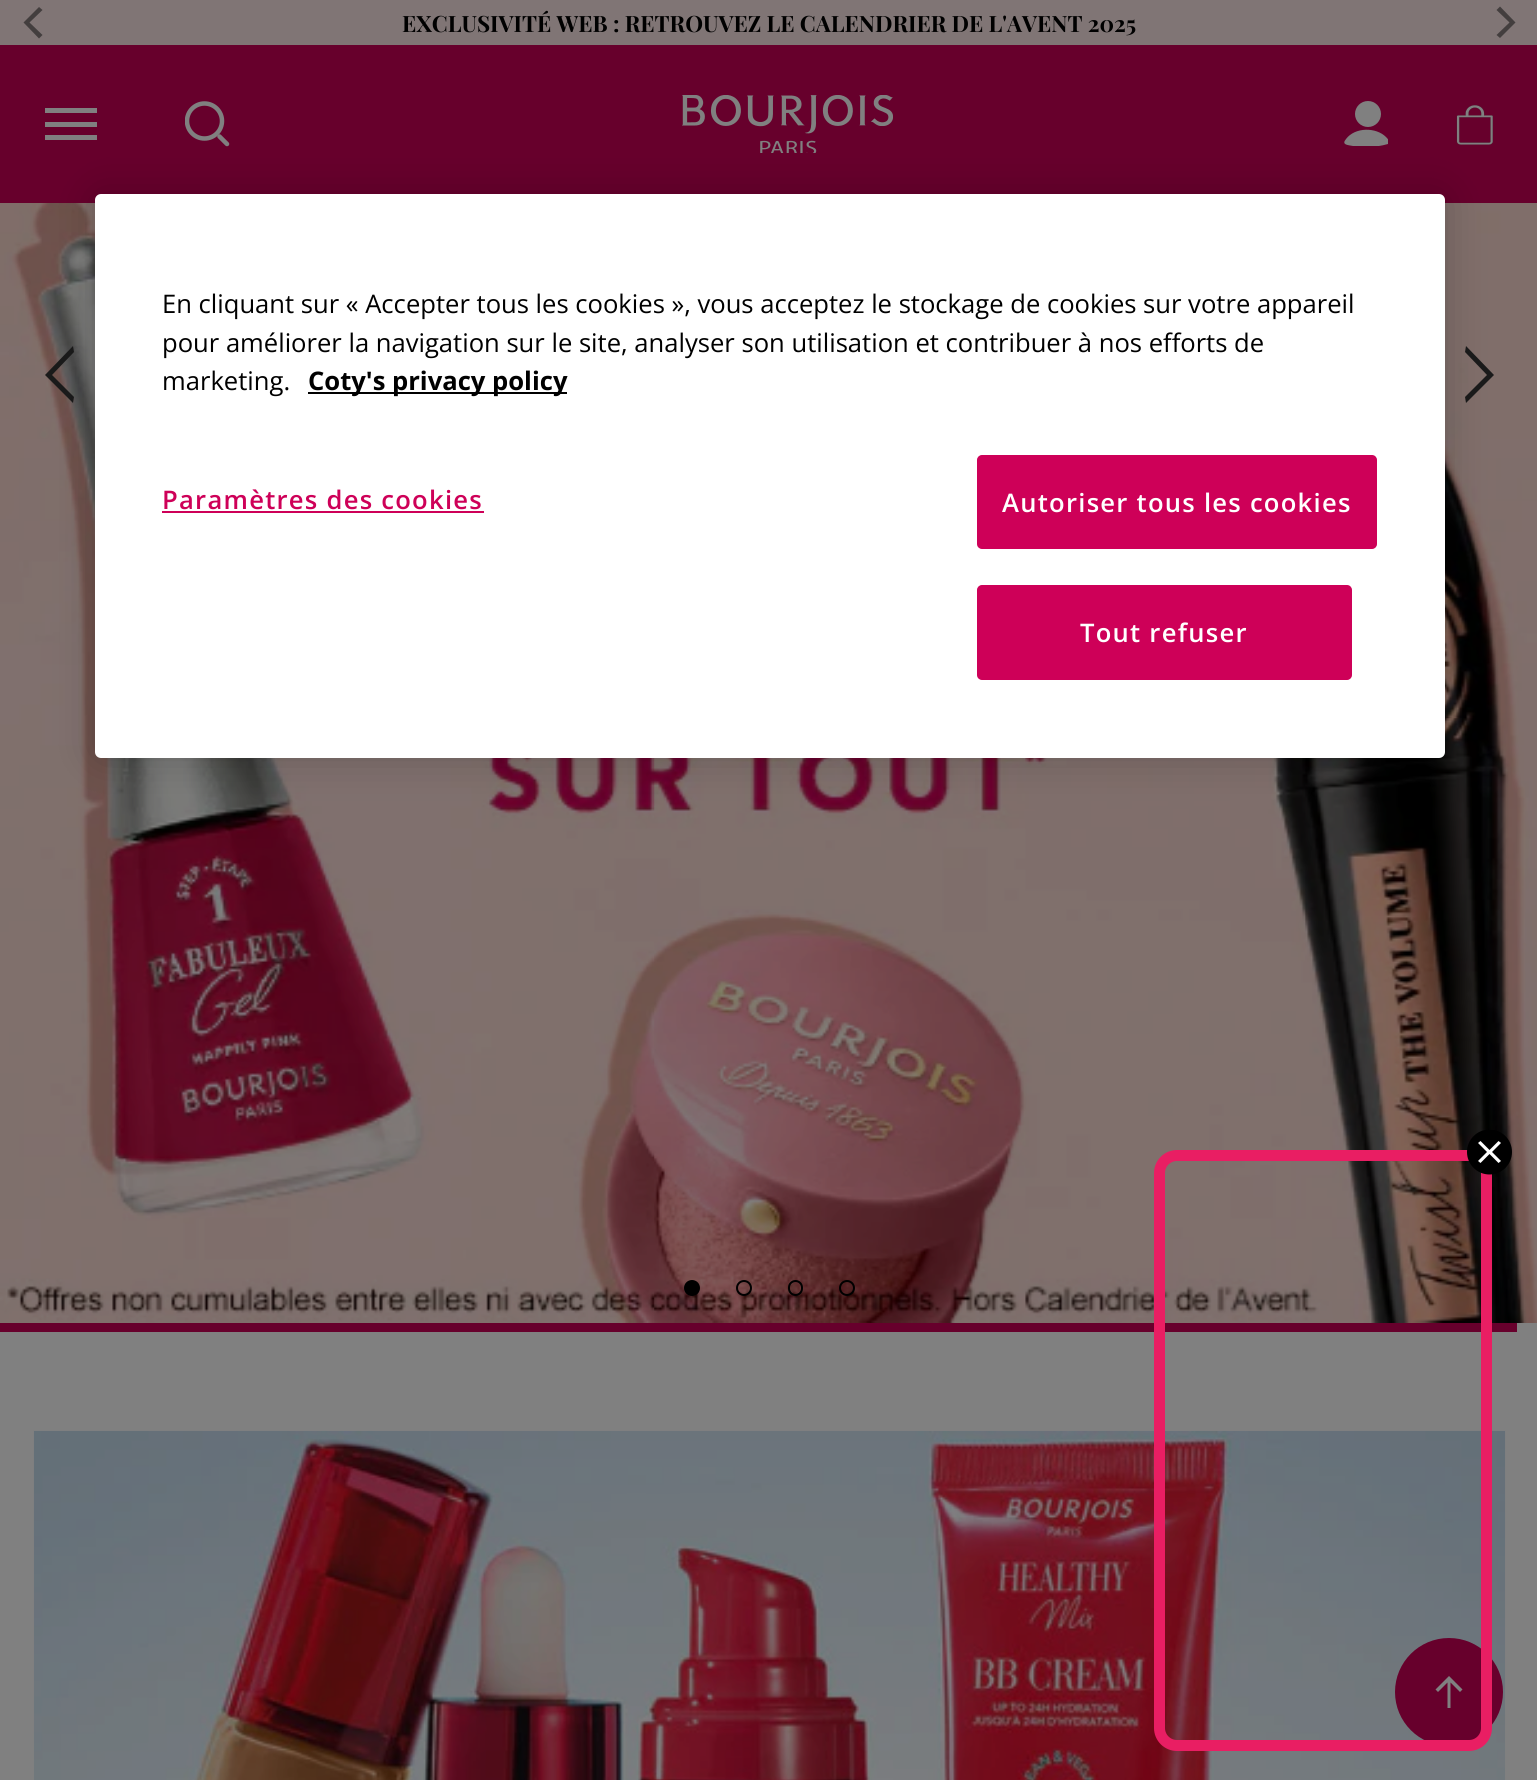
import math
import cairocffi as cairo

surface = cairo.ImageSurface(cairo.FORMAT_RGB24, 1537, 1780)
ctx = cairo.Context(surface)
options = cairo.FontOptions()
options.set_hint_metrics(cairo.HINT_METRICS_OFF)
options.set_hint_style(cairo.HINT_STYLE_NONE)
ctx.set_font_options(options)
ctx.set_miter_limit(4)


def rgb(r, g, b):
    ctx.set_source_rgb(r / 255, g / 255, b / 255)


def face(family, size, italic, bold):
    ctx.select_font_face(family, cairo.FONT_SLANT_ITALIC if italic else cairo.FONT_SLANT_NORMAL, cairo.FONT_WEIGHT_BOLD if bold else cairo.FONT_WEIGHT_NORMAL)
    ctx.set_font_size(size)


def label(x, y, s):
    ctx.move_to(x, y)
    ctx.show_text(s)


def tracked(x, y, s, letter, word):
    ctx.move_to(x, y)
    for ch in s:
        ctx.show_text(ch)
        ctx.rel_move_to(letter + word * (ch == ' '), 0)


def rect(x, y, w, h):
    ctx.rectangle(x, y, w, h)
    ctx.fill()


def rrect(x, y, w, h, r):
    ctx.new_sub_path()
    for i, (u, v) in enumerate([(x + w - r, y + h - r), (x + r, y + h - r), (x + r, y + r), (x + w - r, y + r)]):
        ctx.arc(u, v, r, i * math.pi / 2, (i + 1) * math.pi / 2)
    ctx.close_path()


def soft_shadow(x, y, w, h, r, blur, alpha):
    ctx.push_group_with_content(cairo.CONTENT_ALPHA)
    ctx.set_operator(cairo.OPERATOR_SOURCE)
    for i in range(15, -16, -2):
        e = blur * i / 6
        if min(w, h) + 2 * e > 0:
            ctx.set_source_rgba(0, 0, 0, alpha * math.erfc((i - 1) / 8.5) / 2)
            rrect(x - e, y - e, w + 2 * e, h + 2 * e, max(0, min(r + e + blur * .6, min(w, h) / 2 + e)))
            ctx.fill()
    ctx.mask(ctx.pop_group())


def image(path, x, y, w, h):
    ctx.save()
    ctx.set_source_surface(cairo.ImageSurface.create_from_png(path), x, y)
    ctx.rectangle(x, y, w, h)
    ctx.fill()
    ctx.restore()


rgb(128, 128, 128)
ctx.paint()
rgb(103, 0, 44)
rect(0, 45, 1537, 158)
rgb(128, 117, 117)
rect(0, 0, 1537, 45)
rgb(67, 62, 62)
ctx.new_path()
ctx.move_to(23.5, 22.5)
ctx.line_to(39, 38.5)
ctx.line_to(42.5, 35)
ctx.line_to(29.5, 22.5)
ctx.line_to(42.5, 10)
ctx.line_to(39, 7)
ctx.close_path()
ctx.fill()
ctx.new_path()
ctx.move_to(1515.5, 22.5)
ctx.line_to(1500, 6.5)
ctx.line_to(1496.5, 10)
ctx.line_to(1509.5, 22.5)
ctx.line_to(1496.5, 35)
ctx.line_to(1500, 38)
ctx.close_path()
ctx.fill()
face('Playfair Display', 22.5, 0, 1)
rgb(0, 0, 0)
label(402, 32, 'EXCLUSIVITÉ WEB : RETROUVEZ LE CALENDRIER DE L\'AVENT 2025')
rgb(128, 128, 128)
rect(45, 108, 52, 5)
rect(45, 122, 52, 5)
rect(45, 135, 52, 5)
ctx.save()
ctx.rectangle(185, 101, 45, 45)
ctx.clip()
ctx.arc(204.5, 121, 17.5, 0, 2 * math.pi)
ctx.set_line_width(4.5)
ctx.stroke()
ctx.restore()
ctx.new_path()
ctx.move_to(227, 144)
ctx.line_to(219.5, 136.5)
ctx.set_line_width(4.5)
ctx.set_line_cap(cairo.LINE_CAP_ROUND)
ctx.stroke()
image('image0.png', 682, 95, 211, 58)
ctx.save()
ctx.rectangle(1343, 101, 45, 45)
ctx.clip()
ctx.new_path()
ctx.move_to(1388, 144)
ctx.curve_to(1392, 143, 1387, 138, 1386, 137)
ctx.curve_to(1376, 127, 1355, 127, 1346, 139)
ctx.curve_to(1341, 145, 1348, 145, 1353, 146)
ctx.line_to(1367, 147)
ctx.curve_to(1374, 147, 1381, 146, 1388, 144)
ctx.close_path()
ctx.fill()
ctx.restore()
ctx.arc(1368, 114, 13, 0, 2 * math.pi)
ctx.fill()
image('image1.png', 1456, 105, 37, 40)
image('image2.png', 0, 203, 1537, 1120)
rgb(26, 26, 26)
ctx.new_path()
ctx.move_to(45, 375)
ctx.line_to(73, 403)
ctx.line_to(74, 397)
ctx.line_to(52, 375)
ctx.line_to(74, 352)
ctx.line_to(73, 346)
ctx.close_path()
ctx.fill()
ctx.new_path()
ctx.move_to(1494, 375)
ctx.line_to(1466, 346)
ctx.line_to(1465, 352)
ctx.line_to(1487, 375)
ctx.line_to(1465, 397)
ctx.line_to(1466, 403)
ctx.close_path()
ctx.fill()
rgb(0, 0, 0)
ctx.arc(692, 1288, 7, 0, 2 * math.pi)
ctx.fill_preserve()
ctx.set_line_width(2)
ctx.set_line_cap(cairo.LINE_CAP_BUTT)
ctx.stroke()
ctx.arc(744, 1288, 7, 0, 2 * math.pi)
ctx.stroke()
rrect(789, 1281, 13, 14, 6.5)
ctx.stroke()
ctx.arc(847, 1288, 7, 0, 2 * math.pi)
ctx.stroke()
rgb(103, 0, 44)
rect(0, 1323, 1517, 9)
image('image3.png', 33, 1430, 1473, 350)
rgb(0, 0, 0)
soft_shadow(95, 194, 1350, 564, 6, 20, 0.2)
rgb(255, 255, 255)
rrect(95, 194, 1350, 564, 6)
ctx.fill()
face('Open Sans', 25.6, 0, 0)
rgb(0, 0, 0)
label(162, 313, 'En cliquant sur « Accepter tous les cookies », vous acceptez le stockage de cookies sur votre appareil')
label(162, 352, 'pour améliorer la navigation sur le site, analyser son utilisation et contribuer à nos efforts de')
label(162, 390, 'marketing.')
rect(308, 392, 259, 2)
face('Open Sans', 25.6, 0, 1)
label(308, 390, 'Coty\'s privacy policy')
face('Open Sans SemiBold', 25.6, 0, 0)
rgb(206, 0, 88)
tracked(162, 509, 'Paramètres des cookies', 1.25, 0)
rect(162, 511, 322, 2)
rrect(978, 456, 398, 92, 4)
ctx.fill_preserve()
ctx.stroke()
rgb(255, 255, 255)
tracked(1002, 512, 'Autoriser tous les cookies', 1.25, 0)
rgb(206, 0, 88)
rrect(978, 586, 373, 93, 4)
ctx.fill_preserve()
ctx.stroke()
rgb(255, 255, 255)
tracked(1080, 642, 'Tout refuser', 1.25, 0)
rgb(103, 0, 44)
ctx.new_path()
ctx.arc(1449, 1692, 54, 0, 2 * math.pi)
ctx.fill()
rgb(128, 128, 128)
ctx.new_path()
ctx.move_to(1450.5, 1682.5)
ctx.line_to(1460, 1692)
ctx.line_to(1462.5, 1689.5)
ctx.line_to(1449, 1676)
ctx.line_to(1435.5, 1689.5)
ctx.line_to(1438, 1692)
ctx.line_to(1447.5, 1682.5)
ctx.line_to(1447.5, 1708)
ctx.line_to(1450.5, 1708)
ctx.close_path()
ctx.fill()
rrect(1159.5, 1155.5, 327, 590, 17.5)
rgb(233, 30, 99)
ctx.set_line_width(11)
ctx.stroke()
ctx.save()
ctx.rectangle(1467, 1130, 45, 45)
ctx.clip()
rgb(0, 0, 0)
ctx.arc(1489.5, 1152, 22.5, 0, 2 * math.pi)
ctx.fill()
ctx.restore()
rgb(255, 255, 255)
ctx.new_path()
ctx.move_to(1478, 1143)
ctx.line_to(1480.5, 1141)
ctx.line_to(1489.5, 1150)
ctx.line_to(1498.5, 1141)
ctx.line_to(1501, 1143)
ctx.line_to(1492, 1152)
ctx.line_to(1501, 1161)
ctx.line_to(1498.5, 1163)
ctx.line_to(1489.5, 1154)
ctx.line_to(1480.5, 1163)
ctx.line_to(1478, 1161)
ctx.line_to(1487, 1152)
ctx.close_path()
ctx.fill()
surface.write_to_png('render.png')
